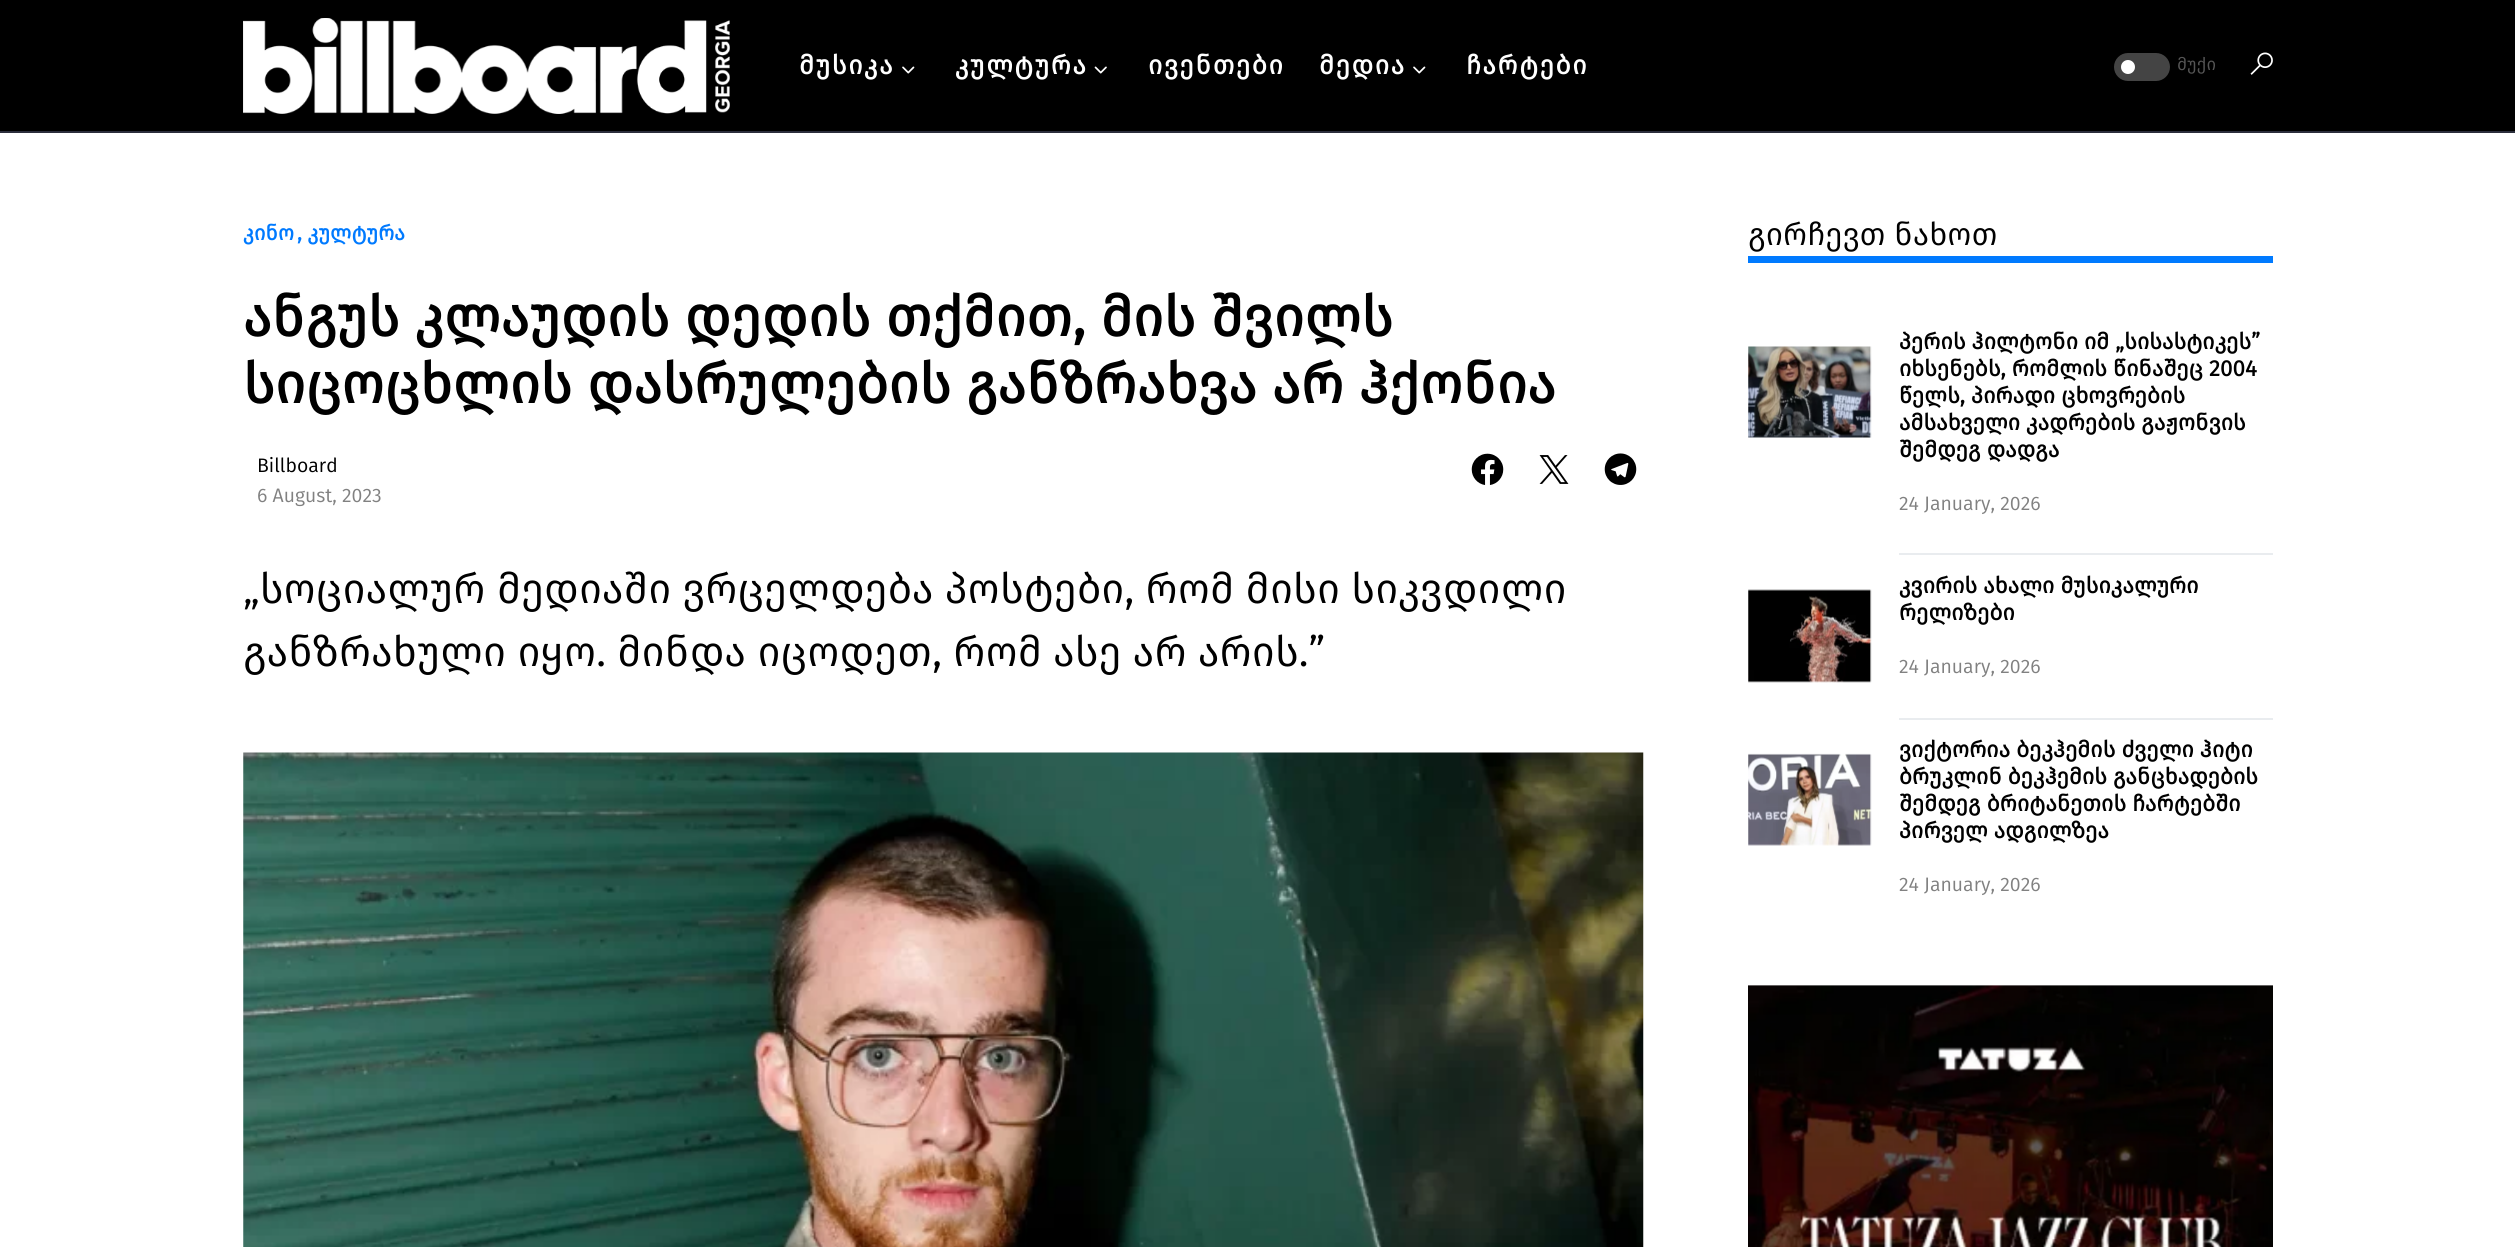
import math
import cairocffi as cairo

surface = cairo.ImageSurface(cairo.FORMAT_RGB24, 2515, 1247)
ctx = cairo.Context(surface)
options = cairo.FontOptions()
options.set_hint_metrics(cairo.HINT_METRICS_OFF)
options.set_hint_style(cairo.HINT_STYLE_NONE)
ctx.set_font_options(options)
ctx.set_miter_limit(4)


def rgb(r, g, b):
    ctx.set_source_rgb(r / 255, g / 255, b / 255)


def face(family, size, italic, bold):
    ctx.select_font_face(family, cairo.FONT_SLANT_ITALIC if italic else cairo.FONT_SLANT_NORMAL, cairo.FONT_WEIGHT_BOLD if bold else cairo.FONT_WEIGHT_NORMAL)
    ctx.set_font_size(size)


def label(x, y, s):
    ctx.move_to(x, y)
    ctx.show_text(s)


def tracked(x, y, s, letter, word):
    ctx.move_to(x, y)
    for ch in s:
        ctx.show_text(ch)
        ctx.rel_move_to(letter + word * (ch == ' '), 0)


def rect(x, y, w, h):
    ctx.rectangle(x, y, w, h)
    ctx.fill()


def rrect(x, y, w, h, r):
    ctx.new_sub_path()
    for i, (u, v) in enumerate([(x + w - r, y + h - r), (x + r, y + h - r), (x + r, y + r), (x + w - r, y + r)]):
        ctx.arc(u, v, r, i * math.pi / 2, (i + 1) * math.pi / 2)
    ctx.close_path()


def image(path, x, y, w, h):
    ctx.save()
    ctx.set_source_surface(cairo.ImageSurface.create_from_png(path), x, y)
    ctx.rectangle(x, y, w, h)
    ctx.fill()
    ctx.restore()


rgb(255, 255, 255)
ctx.paint()
rgb(0, 0, 0)
rect(0, 0, 2515, 131)
rgb(43, 46, 60)
rect(0, 131, 2515, 2)
image('image0.png', 243, 18, 487, 96)
face('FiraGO', 26.25, 0, 1)
rgb(255, 255, 255)
tracked(799, 74, 'მუსიკა', 1.5, 0)
image('image1.png', 902, 66, 13, 8)
tracked(955, 74, 'კულტურა', 1.5, 0)
image('image2.png', 1094, 66, 13, 8)
tracked(1148, 74, 'ივენთები', 1.5, 0)
tracked(1319, 74, 'მედია', 1.5, 0)
image('image1.png', 1413, 66, 13, 8)
tracked(1466, 74, 'ჩარტები', 1.5, 0)
rgb(68, 68, 68)
rrect(2114, 53, 56, 28, 14)
ctx.fill()
rgb(255, 255, 255)
ctx.arc(2128, 67, 7, 0, 2 * math.pi)
ctx.fill()
face('FiraGO', 17.5, 0, 0)
rgb(85, 85, 85)
label(2177, 70, 'მუქი')
image('image3.png', 2250, 52, 23, 23)
face('FiraGO', 21, 0, 1)
rgb(0, 122, 255)
label(243, 240, 'კინო')
label(297, 240, ', კულტურა')
face('FiraGO', 56, 0, 1)
rgb(0, 0, 0)
label(243, 336, 'ანგუს კლაუდის დედის თქმით, მის შვილს')
label(243, 403, 'სიცოცხლის დასრულების განზრახვა არ ჰქონია')
face('FiraGO', 19.5, 0, 0)
label(257, 472, 'Billboard')
rgb(129, 129, 129)
label(257, 502, '6 August, 2023')
image('image4.png', 1471, 453, 33, 32)
image('image5.png', 1539, 455, 30, 29)
image('image6.png', 1604, 453, 33, 32)
face('FiraGO', 42, 0, 0)
rgb(0, 0, 0)
label(243, 603, '„სოციალურ მედიაში ვრცელდება პოსტები, რომ მისი სიკვდილი')
label(243, 666, 'განზრახული იყო. მინდა იცოდეთ, რომ ასე არ არის.”')
image('image7.png', 243, 752, 1401, 495)
rgb(0, 122, 255)
rect(1748, 256, 525, 7)
face('FiraGO', 31.5, 0, 0)
rgb(0, 0, 0)
label(1748, 245, 'გირჩევთ ნახოთ')
image('image8.png', 1748, 346, 124, 92)
face('FiraGO', 22.4, 0, 1)
label(1899, 349, 'პერის ჰილტონი იმ „სისასტიკეს”')
label(1899, 376, 'იხსენებს, რომლის წინაშეც 2004')
label(1899, 403, 'წელს, პირადი ცხოვრების')
label(1899, 430, 'ამსახველი კადრების გაჟონვის')
label(1899, 457, 'შემდეგ დადგა')
face('FiraGO', 19.5, 0, 0)
rgb(129, 129, 129)
label(1899, 510, '24 January, 2026')
rgb(233, 236, 239)
rect(1899, 553, 374, 2)
image('image9.png', 1748, 589, 124, 94)
face('FiraGO', 22.4, 0, 1)
rgb(0, 0, 0)
label(1899, 593, 'კვირის ახალი მუსიკალური')
label(1899, 620, 'რელიზები')
face('FiraGO', 19.5, 0, 0)
rgb(129, 129, 129)
label(1899, 673, '24 January, 2026')
rgb(233, 236, 239)
rect(1899, 718, 374, 2)
image('image10.png', 1748, 753, 124, 93)
face('FiraGO', 22.4, 0, 1)
rgb(0, 0, 0)
label(1899, 757, 'ვიქტორია ბეკჰემის ძველი ჰიტი')
label(1899, 784, 'ბრუკლინ ბეკჰემის განცხადების')
label(1899, 811, 'შემდეგ ბრიტანეთის ჩარტებში')
label(1899, 838, 'პირველ ადგილზეა')
face('FiraGO', 19.5, 0, 0)
rgb(129, 129, 129)
label(1899, 891, '24 January, 2026')
image('image11.png', 1748, 985, 525, 262)
surface.write_to_png('render.png')
